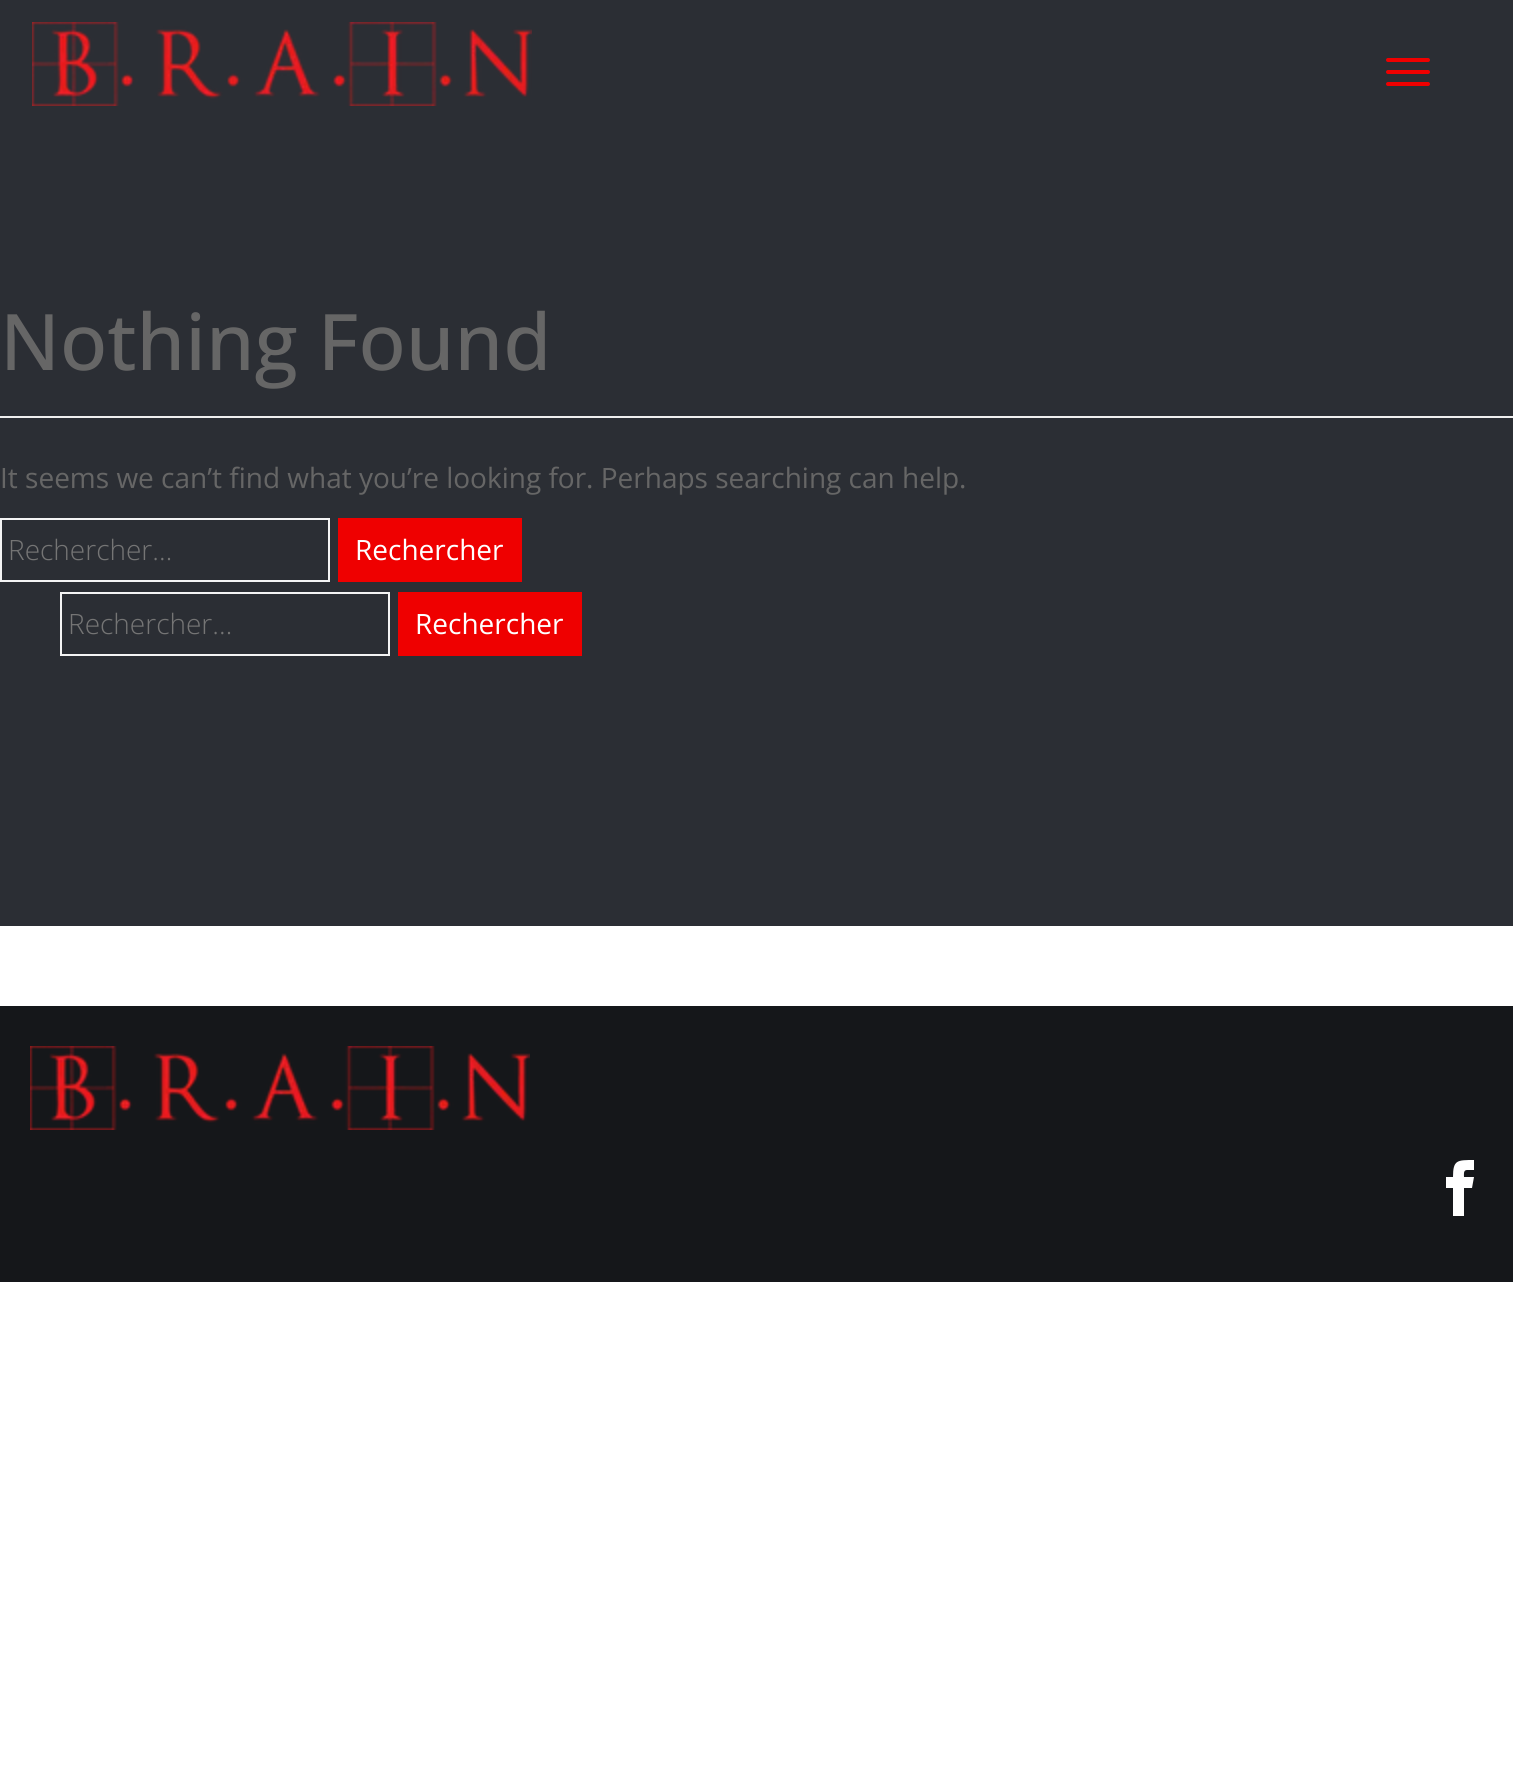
import math
import cairocffi as cairo

surface = cairo.ImageSurface(cairo.FORMAT_RGB24, 1513, 1783)
ctx = cairo.Context(surface)
options = cairo.FontOptions()
options.set_hint_metrics(cairo.HINT_METRICS_OFF)
options.set_hint_style(cairo.HINT_STYLE_NONE)
ctx.set_font_options(options)
ctx.set_miter_limit(4)


def rgb(r, g, b):
    ctx.set_source_rgb(r / 255, g / 255, b / 255)


def face(family, size, italic, bold):
    ctx.select_font_face(family, cairo.FONT_SLANT_ITALIC if italic else cairo.FONT_SLANT_NORMAL, cairo.FONT_WEIGHT_BOLD if bold else cairo.FONT_WEIGHT_NORMAL)
    ctx.set_font_size(size)


def label(x, y, s):
    ctx.move_to(x, y)
    ctx.show_text(s)


def rect(x, y, w, h):
    ctx.rectangle(x, y, w, h)
    ctx.fill()


def rrect(x, y, w, h, r):
    ctx.new_sub_path()
    for i, (u, v) in enumerate([(x + w - r, y + h - r), (x + r, y + h - r), (x + r, y + r), (x + w - r, y + r)]):
        ctx.arc(u, v, r, i * math.pi / 2, (i + 1) * math.pi / 2)
    ctx.close_path()


def image(path, x, y, w, h):
    ctx.save()
    ctx.set_source_surface(cairo.ImageSurface.create_from_png(path), x, y)
    ctx.rectangle(x, y, w, h)
    ctx.fill()
    ctx.restore()


rgb(255, 255, 255)
ctx.paint()
rgb(43, 46, 52)
rect(0, 0, 1513, 926)
image('image0.png', 32, 22, 500, 84)
rgb(239, 0, 0)
rrect(1386, 58, 44, 4, 2)
ctx.fill()
rrect(1386, 70, 44, 4, 2)
ctx.fill()
rrect(1386, 82, 44, 4, 2)
ctx.fill()
rgb(238, 238, 238)
rect(0, 416, 1513, 2)
face('Open Sans Medium', 78, 0, 0)
rgb(102, 102, 102)
label(0, 370, 'Nothing Found')
face('Open Sans', 28, 0, 0)
label(0, 488, 'It seems we can’t find what you’re looking for. Perhaps searching can help.')
ctx.rectangle(1, 519, 328, 62)
rgb(244, 244, 244)
ctx.stroke()
face('Open Sans Light', 28, 0, 0)
rgb(117, 117, 117)
label(8, 560, 'Rechercher…')
rgb(239, 0, 0)
rect(338, 518, 184, 64)
face('Open Sans', 28, 0, 0)
rgb(255, 255, 255)
label(355, 560, 'Rechercher')
ctx.rectangle(61, 593, 328, 62)
rgb(244, 244, 244)
ctx.stroke()
face('Open Sans Light', 28, 0, 0)
rgb(117, 117, 117)
label(68, 634, 'Rechercher…')
rgb(239, 0, 0)
rect(398, 592, 184, 64)
face('Open Sans', 28, 0, 0)
rgb(255, 255, 255)
label(415, 634, 'Rechercher')
rgb(21, 23, 26)
rect(0, 1006, 1513, 276)
image('image1.png', 30, 1046, 500, 84)
rgb(255, 255, 255)
ctx.new_path()
ctx.move_to(1467, 1170)
ctx.line_to(1474, 1170)
ctx.line_to(1474, 1160)
ctx.curve_to(1457, 1160, 1453, 1160, 1453, 1177)
ctx.line_to(1446, 1177)
ctx.line_to(1446, 1188)
ctx.line_to(1453, 1188)
ctx.line_to(1453, 1216)
ctx.line_to(1464, 1216)
ctx.line_to(1464, 1188)
ctx.line_to(1472, 1188)
ctx.line_to(1474, 1177)
ctx.line_to(1464, 1177)
ctx.curve_to(1464, 1175, 1463, 1170, 1467, 1170)
ctx.close_path()
ctx.fill()
surface.write_to_png('render.png')
